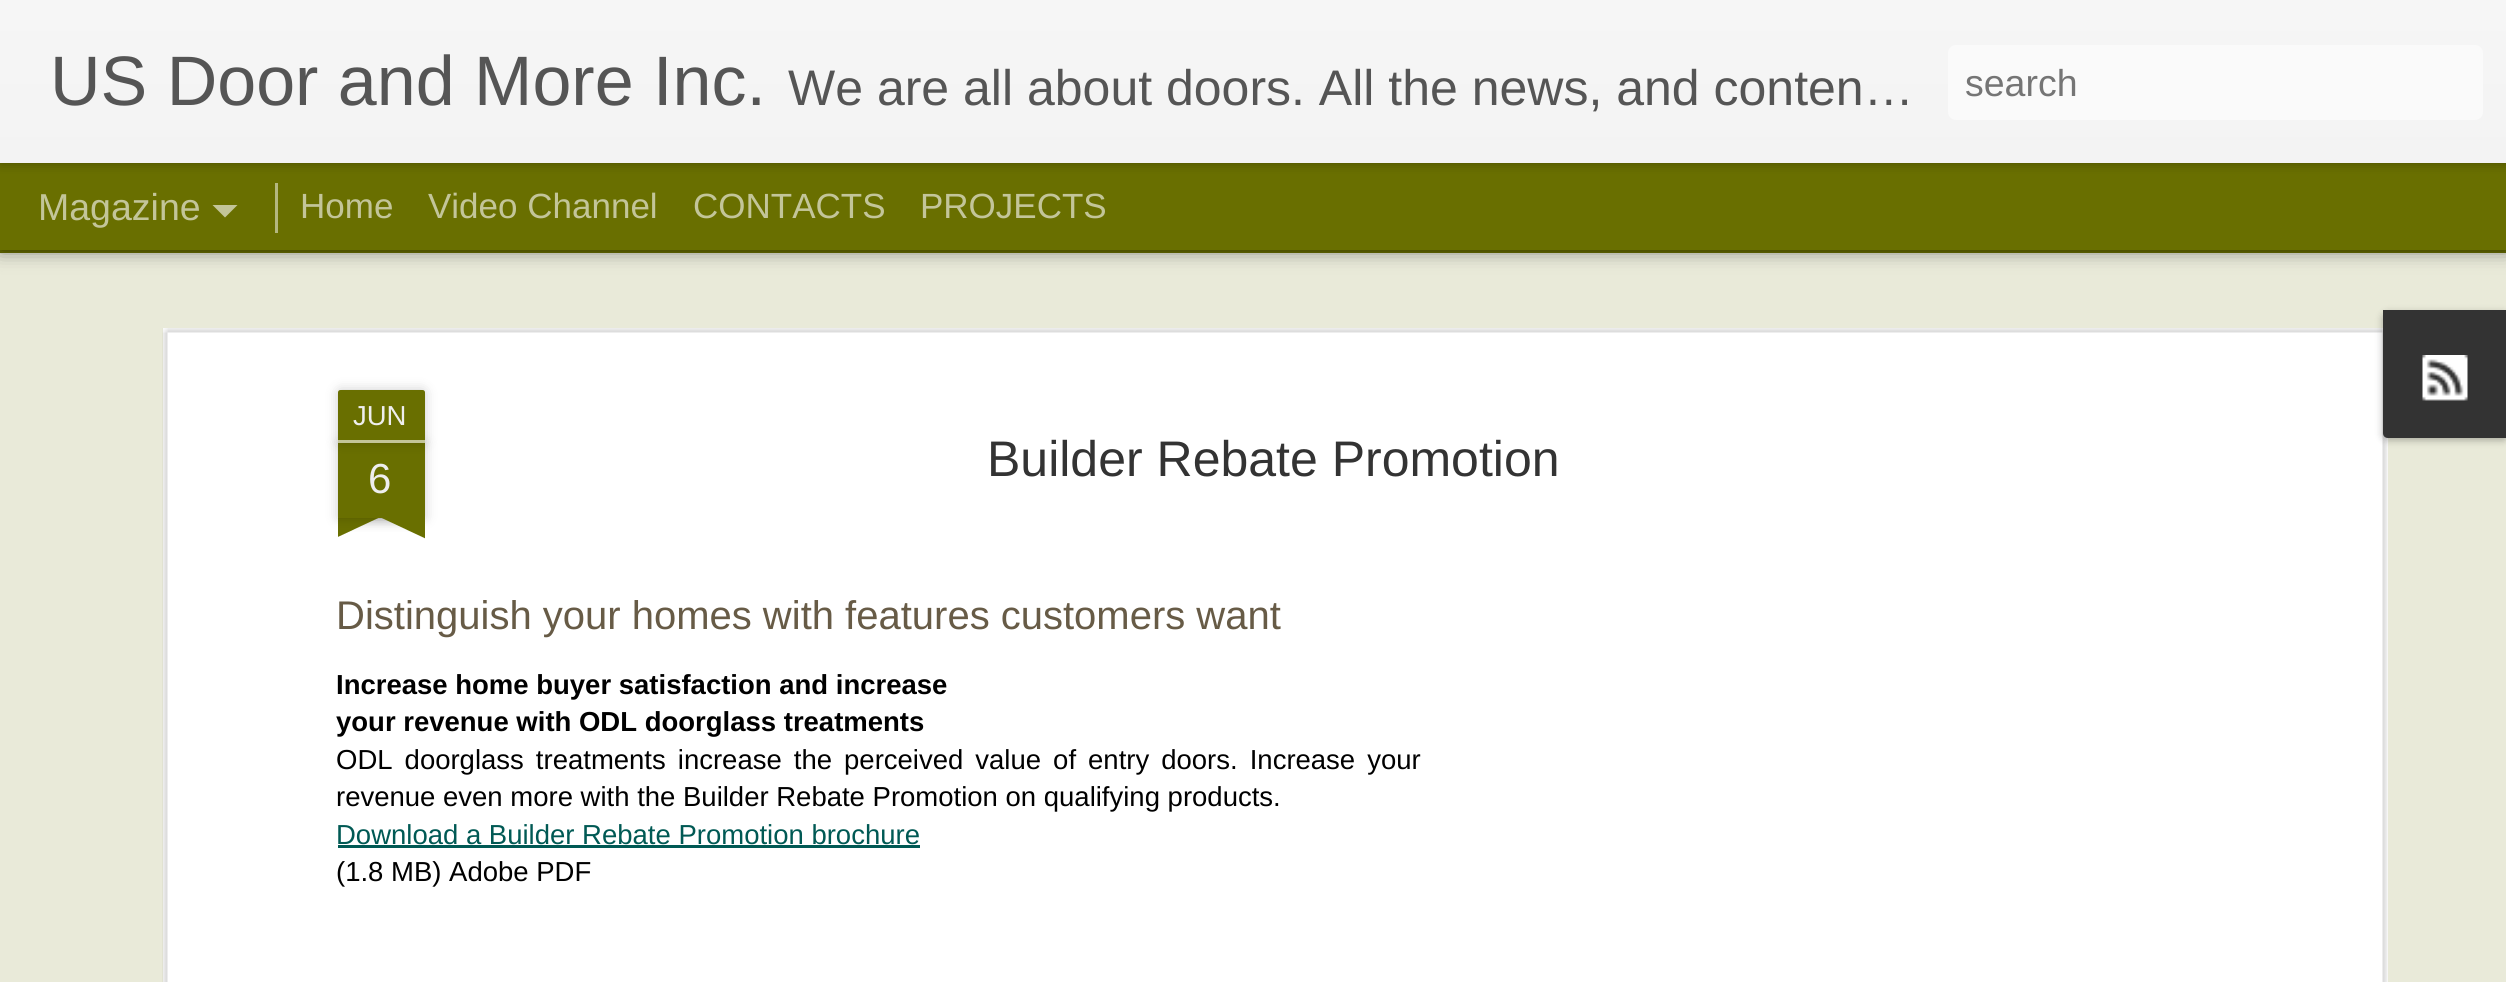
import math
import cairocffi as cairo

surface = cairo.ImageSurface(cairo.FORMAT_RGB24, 2506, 982)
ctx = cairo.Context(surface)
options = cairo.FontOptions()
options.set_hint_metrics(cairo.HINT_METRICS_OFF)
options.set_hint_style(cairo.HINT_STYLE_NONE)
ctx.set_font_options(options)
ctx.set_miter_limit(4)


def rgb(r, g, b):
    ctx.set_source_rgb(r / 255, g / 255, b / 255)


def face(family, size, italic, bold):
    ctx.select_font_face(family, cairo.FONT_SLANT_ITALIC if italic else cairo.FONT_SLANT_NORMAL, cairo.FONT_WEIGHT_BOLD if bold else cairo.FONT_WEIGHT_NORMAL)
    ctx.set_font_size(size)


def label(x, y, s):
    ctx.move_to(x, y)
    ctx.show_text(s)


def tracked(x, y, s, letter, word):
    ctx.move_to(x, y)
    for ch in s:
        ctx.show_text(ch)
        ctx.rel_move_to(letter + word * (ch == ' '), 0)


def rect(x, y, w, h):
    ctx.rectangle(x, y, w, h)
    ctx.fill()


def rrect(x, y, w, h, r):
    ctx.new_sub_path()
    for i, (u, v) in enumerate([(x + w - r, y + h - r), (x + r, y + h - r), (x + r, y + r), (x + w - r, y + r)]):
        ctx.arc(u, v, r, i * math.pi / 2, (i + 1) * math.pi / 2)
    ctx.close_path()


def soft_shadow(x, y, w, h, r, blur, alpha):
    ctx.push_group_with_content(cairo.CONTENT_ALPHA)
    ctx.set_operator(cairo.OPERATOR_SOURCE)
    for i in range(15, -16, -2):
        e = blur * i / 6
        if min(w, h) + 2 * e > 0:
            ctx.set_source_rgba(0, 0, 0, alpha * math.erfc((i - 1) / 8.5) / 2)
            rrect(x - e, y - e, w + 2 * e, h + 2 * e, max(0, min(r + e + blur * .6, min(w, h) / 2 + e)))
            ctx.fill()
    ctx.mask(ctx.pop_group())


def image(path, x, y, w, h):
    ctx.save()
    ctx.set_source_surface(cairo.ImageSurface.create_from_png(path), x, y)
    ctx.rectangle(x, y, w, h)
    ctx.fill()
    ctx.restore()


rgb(105, 111, 0)
ctx.paint()
rgb(233, 234, 217)
rect(0, 253, 2506, 729)
rgb(0, 0, 0)
soft_shadow(0, 163, 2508, 87, 0, 10, 0.5)
rgb(105, 111, 0)
rect(0, 163, 2506, 87)
rgb(0, 0, 0)
soft_shadow(0, 0, 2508, 163, 0, 6, 0.3)
gradient = cairo.LinearGradient(0, 0, 0, 163)
gradient.add_color_stop_rgba(0, 0.965, 0.965, 0.965, 1)
gradient.add_color_stop_rgba(1, 0.953, 0.953, 0.953, 1)
ctx.set_source(gradient)
rect(0, 0, 2506, 163)
face('Liberation Sans', 70, 0, 0)
rgb(85, 85, 85)
label(50, 105, 'US Door and More Inc.')
face('Liberation Sans', 50, 0, 0)
label(788, 105, 'We are all about doors. All the news, and conten…')
rgb(250, 250, 250)
rrect(1948, 45, 535, 75, 8)
ctx.fill()
face('Liberation Sans', 37.5, 0, 0)
rgb(117, 117, 117)
label(1965, 96, 'search')
rgb(195, 197, 153)
label(38, 220, 'Magazine')
ctx.new_path()
ctx.move_to(212.5, 205)
ctx.line_to(237.5, 205)
ctx.line_to(225, 217.5)
ctx.close_path()
ctx.fill()
rgb(180, 183, 128)
rect(275, 183, 3, 50)
face('Liberation Sans', 35, 0, 0)
rgb(195, 197, 153)
label(300, 218, 'Home')
label(428, 218, 'Video Channel')
label(693, 218, 'CONTACTS')
label(920, 218, 'PROJECTS')
rgb(255, 255, 255)
rect(163, 328, 2225, 654)
image('image1.png', 162, 328, 2226, 654)
rgb(0, 0, 0)
soft_shadow(2383, 313, 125, 127, 5, 4, 0.3)
rgb(51, 51, 51)
ctx.new_path()
ctx.move_to(2383, 310)
ctx.line_to(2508, 310)
ctx.line_to(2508, 438)
ctx.line_to(2388, 438)
ctx.curve_to(2385, 438, 2383, 436, 2383, 433)
ctx.close_path()
ctx.fill()
image('image0.png', 2422, 355, 46, 46)
rgb(0, 0, 0)
soft_shadow(338, 443, 87, 75, 0, 6, 0.2)
rgb(105, 111, 0)
rect(338, 443, 87, 75)
rgb(0, 0, 0)
soft_shadow(338, 390, 87, 53, 2.5, 6, 0.2)
rgb(105, 111, 0)
ctx.new_path()
ctx.move_to(340.5, 390)
ctx.line_to(422.5, 390)
ctx.curve_to(424, 390, 425, 391, 425, 392.5)
ctx.line_to(425, 443)
ctx.line_to(338, 443)
ctx.line_to(338, 392.5)
ctx.curve_to(338, 391, 339, 390, 340.5, 390)
ctx.close_path()
ctx.fill()
rgb(195, 197, 153)
rect(338, 440, 87, 3)
face('Liberation Sans', 27.5, 0, 0)
rgb(238, 238, 238)
label(353, 425, 'JUN')
face('Liberation Sans', 42, 0, 0)
label(368, 493, '6')
ctx.save()
ctx.rectangle(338, 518, 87, 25)
ctx.clip()
rgb(0, 0, 0)
soft_shadow(315, 493, 125, 25, 0, 6.5, 0.2)
ctx.restore()
ctx.save()
ctx.rectangle(338, 518, 87, 25)
ctx.clip()
rgb(105, 111, 0)
ctx.new_path()
ctx.move_to(314, 520)
ctx.line_to(428, 467)
ctx.line_to(438, 490)
ctx.line_to(325, 543)
ctx.close_path()
ctx.fill()
ctx.restore()
ctx.save()
ctx.rectangle(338, 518, 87, 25)
ctx.clip()
rgb(0, 0, 0)
soft_shadow(323, 493, 125, 25, 0, 6.5, 0.2)
ctx.restore()
ctx.save()
ctx.rectangle(338, 518, 87, 25)
ctx.clip()
rgb(105, 111, 0)
ctx.new_path()
ctx.move_to(332, 467)
ctx.line_to(446, 520)
ctx.line_to(435, 543)
ctx.line_to(322, 490)
ctx.close_path()
ctx.fill()
ctx.restore()
face('Liberation Sans', 50, 0, 0)
rgb(51, 51, 51)
label(987, 476, 'Builder Rebate Promotion')
face('Liberation Sans', 40, 0, 0)
rgb(103, 91, 70)
label(336, 629, 'Distinguish your homes with features customers want')
face('Liberation Sans', 27.5, 0, 1)
rgb(0, 0, 0)
label(336, 694, 'Increase home buyer satisfaction and increase')
label(336, 731, 'your revenue with ODL doorglass treatments')
face('Liberation Sans', 27.5, 0, 0)
tracked(336, 769, 'ODL doorglass treatments increase the perceived value of entry doors. Increase your', 0, 4.4)
label(336, 806, 'revenue even more with the Builder Rebate Promotion on qualifying products.')
rgb(0, 89, 84)
label(336, 844, 'Download a Builder Rebate Promotion brochure')
rect(338, 845, 582, 3)
rgb(0, 0, 0)
label(336, 881, '(1.8 MB) Adobe PDF')
surface.write_to_png('render.png')
